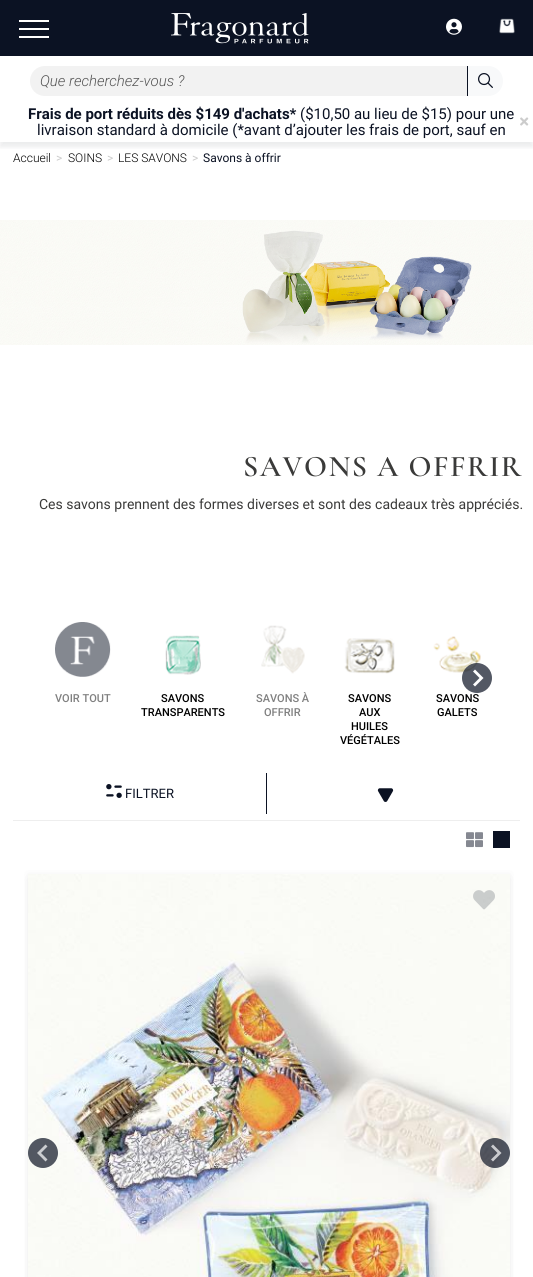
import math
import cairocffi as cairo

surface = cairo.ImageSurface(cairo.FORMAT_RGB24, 533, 1277)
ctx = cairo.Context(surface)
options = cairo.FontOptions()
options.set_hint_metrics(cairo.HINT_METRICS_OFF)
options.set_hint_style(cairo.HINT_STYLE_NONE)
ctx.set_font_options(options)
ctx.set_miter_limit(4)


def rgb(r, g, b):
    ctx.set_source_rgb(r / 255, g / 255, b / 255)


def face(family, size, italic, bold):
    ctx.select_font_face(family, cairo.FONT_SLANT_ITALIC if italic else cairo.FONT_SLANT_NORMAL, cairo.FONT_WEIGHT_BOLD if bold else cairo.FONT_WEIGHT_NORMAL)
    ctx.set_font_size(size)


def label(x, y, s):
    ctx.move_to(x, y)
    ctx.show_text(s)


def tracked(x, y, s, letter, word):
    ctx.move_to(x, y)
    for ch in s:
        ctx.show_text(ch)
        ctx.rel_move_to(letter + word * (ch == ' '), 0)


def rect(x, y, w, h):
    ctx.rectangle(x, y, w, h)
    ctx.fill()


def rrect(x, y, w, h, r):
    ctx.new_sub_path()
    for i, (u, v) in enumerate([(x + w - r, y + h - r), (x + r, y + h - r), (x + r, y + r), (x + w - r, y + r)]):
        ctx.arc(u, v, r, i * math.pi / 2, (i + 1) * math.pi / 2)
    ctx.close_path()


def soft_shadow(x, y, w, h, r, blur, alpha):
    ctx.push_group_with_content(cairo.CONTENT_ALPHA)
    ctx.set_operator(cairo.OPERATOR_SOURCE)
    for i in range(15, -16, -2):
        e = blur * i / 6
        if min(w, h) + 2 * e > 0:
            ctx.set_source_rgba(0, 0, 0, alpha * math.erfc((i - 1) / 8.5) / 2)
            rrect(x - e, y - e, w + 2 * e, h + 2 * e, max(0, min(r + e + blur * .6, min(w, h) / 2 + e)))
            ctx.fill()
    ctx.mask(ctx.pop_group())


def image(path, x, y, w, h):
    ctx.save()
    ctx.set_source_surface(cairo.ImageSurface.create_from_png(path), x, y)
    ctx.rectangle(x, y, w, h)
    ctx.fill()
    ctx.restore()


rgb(255, 255, 255)
ctx.paint()
rgb(11, 18, 35)
rect(0, 0, 533, 56)
rgb(255, 255, 255)
rect(19, 20, 30, 2)
rect(19, 28, 30, 2)
rect(19, 36, 30, 2)
image('image0.png', 171, 13, 138, 31)
image('image1.png', 446, 18, 16, 17)
image('image2.png', 499, 18, 16, 16)
rgb(242, 242, 242)
ctx.new_path()
ctx.move_to(45, 66)
ctx.line_to(467, 66)
ctx.line_to(467, 96)
ctx.line_to(45, 96)
ctx.curve_to(36.5, 96, 30, 89.5, 30, 81)
ctx.curve_to(30, 72.5, 36.5, 66, 45, 66)
ctx.close_path()
ctx.fill()
face('Roboto Light', 15, 1, 0)
rgb(85, 85, 85)
label(40, 86, 'Que recherchez-vous ?')
rgb(248, 249, 250)
ctx.new_path()
ctx.move_to(467, 66)
ctx.line_to(488, 66)
ctx.curve_to(496.5, 66, 503, 72.5, 503, 81)
ctx.curve_to(503, 89.5, 496.5, 96, 488, 96)
ctx.line_to(467, 96)
ctx.close_path()
ctx.fill()
rgb(11, 18, 35)
rect(467, 66, 1, 30)
image('image3.png', 478, 73, 15, 15)
ctx.save()
ctx.rectangle(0, 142, 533, 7)
ctx.clip()
rgb(57, 63, 72)
soft_shadow(0, 111, 533, 36, 0, 2.5, 0.1)
ctx.restore()
face('Roboto', 15, 0, 1)
label(28, 119, 'Frais de port réduits dès $149 d\'achats*')
face('Roboto', 15, 0, 0)
label(300, 119, '($10,50 au lieu de $15) pour une')
label(37, 135, 'livraison standard à domicile (*avant d’ajouter les frais de port, sauf en')
image('image4.png', 520, 117, 9, 9)
face('Roboto Light', 12, 0, 0)
rgb(0, 0, 0)
label(13, 162, 'Accueil')
face('Roboto', 12, 0, 0)
rgb(204, 204, 204)
label(56, 162, '>')
face('Roboto Light', 12, 0, 0)
rgb(0, 0, 0)
label(68, 162, 'SOINS')
face('Roboto', 12, 0, 0)
rgb(204, 204, 204)
label(107, 162, '>')
face('Roboto Light', 12, 0, 0)
rgb(0, 0, 0)
label(118, 162, 'LES SAVONS')
face('Roboto', 12, 0, 0)
rgb(204, 204, 204)
label(192, 162, '>')
rgb(11, 18, 35)
label(203, 162, 'Savons à offrir')
image('image5.png', 0, 220, 533, 125)
face('Cormorant Garamond SemiBold', 30, 0, 0)
rgb(58, 58, 57)
tracked(243, 476, 'SAVONS A OFFRIR', 1.5, 0)
face('Roboto', 14, 0, 0)
label(39, 509, 'Ces savons prennent des formes diverses et sont des cadeaux très appréciés.')
image('image10.png', 433, 636, 48, 37)
ctx.set_source_rgba(0.043, 0.071, 0.137, 0.7)
ctx.arc(477, 678, 15, 0, 2 * math.pi)
ctx.fill()
rgb(255, 255, 255)
ctx.new_path()
ctx.move_to(475, 669.5)
ctx.line_to(473, 671.5)
ctx.line_to(479.5, 678)
ctx.line_to(473, 684.5)
ctx.line_to(475, 686.5)
ctx.line_to(483.5, 678)
ctx.close_path()
ctx.fill()
image('image6.png', 55, 622, 56, 55)
face('Roboto Medium', 11, 0, 0)
rgb(128, 128, 128)
label(55, 702, 'VOIR TOUT')
image('image7.png', 165, 635, 36, 40)
rgb(0, 0, 0)
label(161, 702, 'SAVONS')
label(141, 716, 'TRANSPARENTS')
image('image8.png', 261, 625, 44, 49)
rgb(128, 128, 128)
label(256, 702, 'SAVONS À')
label(264, 716, 'OFFRIR')
image('image9.png', 344, 638, 51, 36)
rgb(0, 0, 0)
label(348, 702, 'SAVONS')
label(359, 716, 'AUX')
label(351, 730, 'HUILES')
label(340, 744, 'VÉGÉTALES')
label(436, 702, 'SAVONS')
label(437, 716, 'GALETS')
rgb(238, 238, 238)
rect(13, 820, 507, 1)
rgb(11, 18, 35)
rect(266, 773, 1, 42)
rgb(255, 255, 255)
rect(266, 814, 1, 1)
image('image11.png', 106, 784, 16, 14)
face('Roboto', 13, 0, 0)
rgb(11, 18, 35)
label(125, 798, 'FILTRER')
image('image12.png', 377, 788, 17, 14)
image('image13.png', 466, 832, 17, 16)
rect(493, 831, 17, 17)
rgb(0, 0, 0)
soft_shadow(28, 879, 482, 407, 0, 3, 0.05)
soft_shadow(28, 874, 482, 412, 0, 3, 0.05)
image('image14.png', 28, 874, 482, 403)
ctx.set_source_rgba(0.043, 0.071, 0.137, 0.7)
ctx.arc(43, 1153, 15, 0, 2 * math.pi)
ctx.fill()
rgb(203, 205, 208)
ctx.new_path()
ctx.move_to(45.5, 1144.5)
ctx.line_to(47.5, 1146.5)
ctx.line_to(41, 1153)
ctx.line_to(47.5, 1159.5)
ctx.line_to(45.5, 1161.5)
ctx.line_to(37, 1153)
ctx.close_path()
ctx.fill()
ctx.set_source_rgba(0.043, 0.071, 0.137, 0.7)
ctx.arc(495, 1153, 15, 0, 2 * math.pi)
ctx.fill()
ctx.set_source_rgba(1, 1, 1, 0.7)
ctx.new_path()
ctx.move_to(493, 1144.5)
ctx.line_to(491, 1146.5)
ctx.line_to(497.5, 1153)
ctx.line_to(491, 1159.5)
ctx.line_to(493, 1161.5)
ctx.line_to(501.5, 1153)
ctx.close_path()
ctx.fill()
image('image15.png', 473, 890, 22, 20)
surface.write_to_png('render.png')
